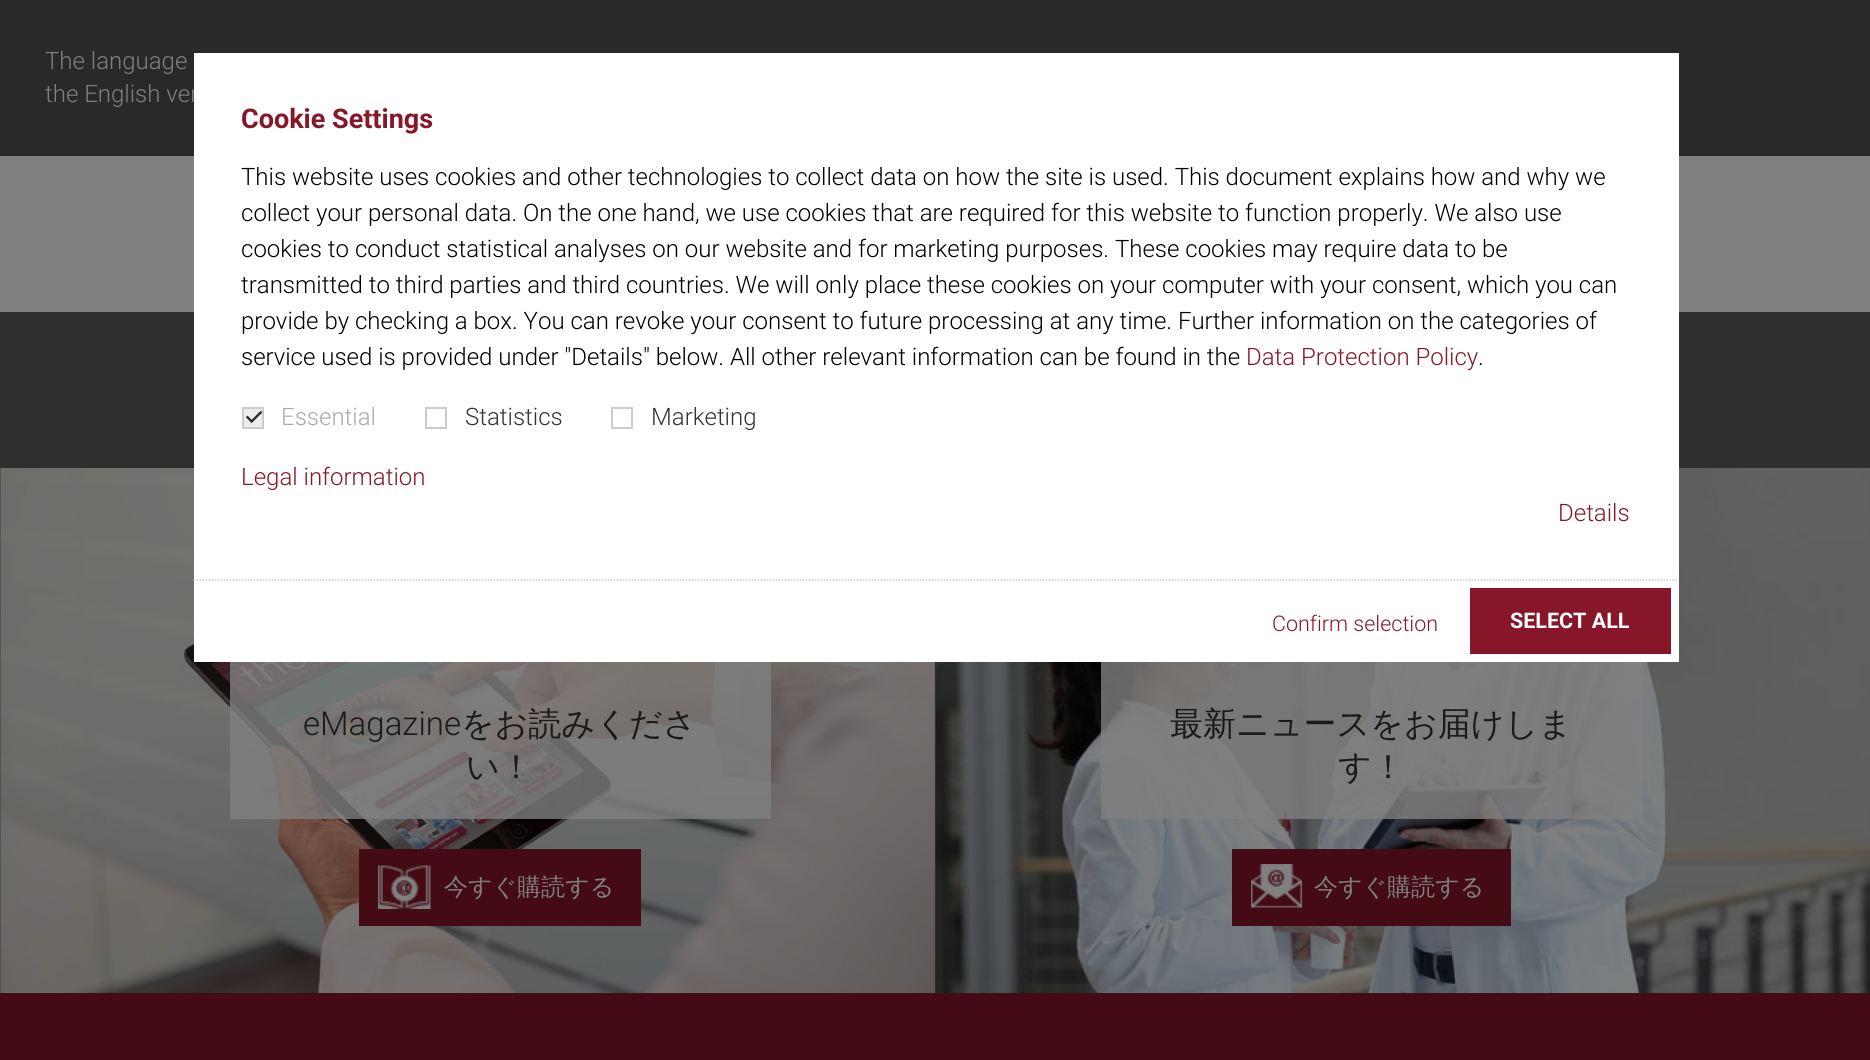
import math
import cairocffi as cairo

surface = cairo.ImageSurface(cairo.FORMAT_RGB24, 1870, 1060)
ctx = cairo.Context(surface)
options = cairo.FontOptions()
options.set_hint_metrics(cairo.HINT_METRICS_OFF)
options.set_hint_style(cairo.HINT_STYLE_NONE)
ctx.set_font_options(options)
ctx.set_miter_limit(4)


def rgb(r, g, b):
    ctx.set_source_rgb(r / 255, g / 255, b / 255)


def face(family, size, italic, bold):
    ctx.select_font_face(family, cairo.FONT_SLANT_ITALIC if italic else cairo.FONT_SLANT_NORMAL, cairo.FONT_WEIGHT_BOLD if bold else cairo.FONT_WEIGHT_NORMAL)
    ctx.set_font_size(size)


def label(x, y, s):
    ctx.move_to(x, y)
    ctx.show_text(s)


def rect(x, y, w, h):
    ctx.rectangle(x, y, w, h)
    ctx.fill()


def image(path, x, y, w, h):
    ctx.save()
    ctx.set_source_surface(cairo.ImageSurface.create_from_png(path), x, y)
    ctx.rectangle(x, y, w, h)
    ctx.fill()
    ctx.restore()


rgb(128, 128, 128)
ctx.paint()
rgb(41, 41, 41)
rect(0, 0, 1870, 156)
face('Roboto Light', 24, 0, 0)
rgb(128, 128, 128)
label(45, 69, 'The language')
label(45, 102, 'the English ver')
rgb(48, 47, 47)
rect(0, 312, 1870, 681)
image('image1.png', 0, 468, 935, 525)
image('image3.png', 936, 468, 934, 525)
rgb(255, 255, 255)
rect(194, 53, 1485, 609)
face('Roboto', 27, 0, 1)
rgb(136, 22, 41)
label(241, 128, 'Cookie Settings')
face('Roboto Light', 24, 0, 0)
rgb(0, 0, 0)
label(241, 185, 'This website uses cookies and other technologies to collect data on how the site is used. This document explains how and why we')
label(241, 221, 'collect your personal data. On the one hand, we use cookies that are required for this website to function properly. We also use')
label(241, 257, 'cookies to conduct statistical analyses on our website and for marketing purposes. These cookies may require data to be')
label(241, 293, 'transmitted to third parties and third countries. We will only place these cookies on your computer with your consent, which you can')
label(241, 329, 'provide by checking a box. You can revoke your consent to future processing at any time. Further information on the categories of')
label(241, 365, 'service used is provided under "Details" below. All other relevant information can be found in the')
rgb(136, 22, 41)
label(1246, 365, 'Data Protection Policy')
rgb(0, 0, 0)
label(1478, 365, '.')
rgb(238, 238, 238)
ctx.rectangle(243, 408, 20, 20)
ctx.fill_preserve()
rgb(204, 204, 204)
ctx.stroke()
rgb(170, 170, 170)
label(281, 425, 'Essential')
image('image0.png', 246, 411, 17, 12)
ctx.rectangle(426, 408, 20, 20)
rgb(204, 204, 204)
ctx.stroke()
rgb(51, 51, 51)
label(465, 425, 'Statistics')
ctx.rectangle(612, 408, 20, 20)
rgb(204, 204, 204)
ctx.stroke()
rgb(51, 51, 51)
label(651, 425, 'Marketing')
rgb(136, 22, 41)
label(241, 485, 'Legal information')
label(1558, 521, 'Details')
ctx.new_path()
ctx.move_to(193.5, 580)
ctx.line_to(1678.5, 580)
rgb(204, 204, 204)
ctx.set_line_width(1.5)
ctx.set_dash([1.5, 1.5])
ctx.stroke()
face('Roboto Light', 21.5, 0, 0)
rgb(136, 22, 41)
label(1272, 631, 'Confirm selection')
rect(1470, 588, 201, 66)
face('Roboto', 21.5, 0, 1)
rgb(255, 255, 255)
label(1510, 628, 'SELECT ALL')
ctx.set_source_rgba(0.502, 0.502, 0.502, 0.8)
rect(230, 662, 541, 157)
face('Roboto Light', 33, 0, 0)
rgb(26, 26, 26)
label(303, 735, 'eMagazine')
face('WenQuanYi Zen Hei Medium', 33, 0, 0)
label(461, 735, 'をお読みくださ')
label(466, 778, 'い！')
rgb(68, 11, 21)
rect(359, 849, 282, 77)
image('image2.png', 378, 865, 53, 44)
face('WenQuanYi Zen Hei Medium', 24, 0, 0)
rgb(128, 128, 128)
label(444, 895, '今すぐ購読する')
ctx.set_source_rgba(0.502, 0.502, 0.502, 0.8)
rect(1101, 662, 542, 157)
face('WenQuanYi Zen Hei Medium', 33, 0, 0)
rgb(26, 26, 26)
label(1170, 735, '最新ニュースをお届けしま')
label(1338, 778, 'す！')
rgb(68, 11, 21)
rect(1232, 849, 279, 77)
image('image4.png', 1251, 864, 51, 44)
face('WenQuanYi Zen Hei Medium', 24, 0, 0)
rgb(128, 128, 128)
label(1314, 895, '今すぐ購読する')
rgb(68, 11, 21)
rect(0, 993, 1870, 67)
surface.write_to_png('render.png')
